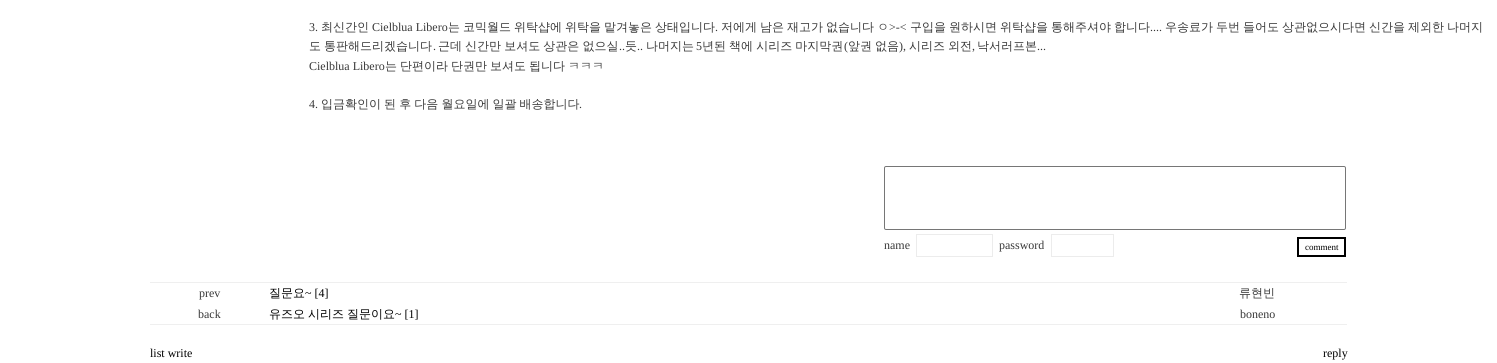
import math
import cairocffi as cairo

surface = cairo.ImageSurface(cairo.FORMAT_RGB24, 1497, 363)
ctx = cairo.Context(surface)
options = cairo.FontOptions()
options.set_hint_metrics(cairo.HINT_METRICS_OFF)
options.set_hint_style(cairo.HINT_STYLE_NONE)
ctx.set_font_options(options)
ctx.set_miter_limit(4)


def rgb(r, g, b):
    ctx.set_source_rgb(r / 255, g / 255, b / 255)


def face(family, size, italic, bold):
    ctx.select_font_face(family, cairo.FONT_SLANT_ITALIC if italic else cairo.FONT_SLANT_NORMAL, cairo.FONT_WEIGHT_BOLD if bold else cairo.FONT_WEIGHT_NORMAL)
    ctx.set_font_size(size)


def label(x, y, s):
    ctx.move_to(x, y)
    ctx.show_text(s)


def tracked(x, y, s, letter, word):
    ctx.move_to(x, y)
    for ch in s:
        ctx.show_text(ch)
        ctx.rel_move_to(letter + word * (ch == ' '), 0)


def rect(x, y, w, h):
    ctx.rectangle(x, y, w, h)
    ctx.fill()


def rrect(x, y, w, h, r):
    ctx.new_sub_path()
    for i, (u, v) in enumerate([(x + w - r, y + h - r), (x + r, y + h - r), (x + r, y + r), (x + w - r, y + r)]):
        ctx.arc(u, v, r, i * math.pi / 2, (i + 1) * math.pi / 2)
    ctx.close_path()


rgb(255, 255, 255)
ctx.paint()
face('Liberation Serif', 12, 0, 0)
rgb(56, 56, 56)
label(309, 31, '3.')
face('WenQuanYi Zen Hei Medium', 12, 0, 0)
label(321, 31, '최신간인')
face('Liberation Serif', 12, 0, 0)
label(372, 31, 'Cielblua Libero')
face('WenQuanYi Zen Hei Medium', 12, 0, 0)
label(448, 31, '는')
label(463, 31, '코믹월드')
label(514, 31, '위탁샵에')
label(565, 31, '위탁을')
label(604, 31, '맡겨놓은')
label(655, 31, '상태입니다')
label(721, 31, '저에게')
label(760, 31, '남은')
label(787, 31, '재고가')
label(826, 31, '없습니다')
label(877, 31, 'ㅇ')
face('Liberation Serif', 12, 0, 0)
label(889, 31, '>-<')
face('WenQuanYi Zen Hei Medium', 12, 0, 0)
label(910, 31, '구입을')
label(949, 31, '원하시면')
label(1000, 31, '위탁샵을')
label(1051, 31, '통해주셔야')
label(1114, 31, '합니다')
label(1165, 31, '우송료가')
label(1216, 31, '두번')
label(1243, 31, '들어도')
label(1282, 31, '상관없으시다면')
label(1369, 31, '신간을')
label(1408, 31, '제외한')
label(1447, 31, '나머지')
face('Liberation Serif', 12, 0, 0)
label(715, 31, '.')
label(1150, 31, '....')
face('WenQuanYi Zen Hei Medium', 12, 0, 0)
tracked(309, 50, '도 통판해드리겠습니다', 0, -0.5)
face('Liberation Serif', 12, 0, 0)
label(433, 50, '.')
face('WenQuanYi Zen Hei Medium', 12, 0, 0)
tracked(438, 50, '근데 신간만 보셔도 상관은 없으실', 0, -0.5)
face('Liberation Serif', 12, 0, 0)
label(619, 50, '..')
face('WenQuanYi Zen Hei Medium', 12, 0, 0)
label(625, 50, '듯')
face('Liberation Serif', 12, 0, 0)
label(637, 50, '..')
face('WenQuanYi Zen Hei Medium', 12, 0, 0)
label(646, 50, '나머지는')
face('Liberation Serif', 12, 0, 0)
label(696, 50, '5')
face('WenQuanYi Zen Hei Medium', 12, 0, 0)
tracked(702, 50, '년된 책에 시리즈 마지막권', 0, -0.5)
face('Liberation Serif', 12, 0, 0)
label(844, 50, '(')
face('WenQuanYi Zen Hei Medium', 12, 0, 0)
tracked(848, 50, '앞권 없음', 0, -0.5)
face('Liberation Serif', 12, 0, 0)
label(899, 50, '),')
face('WenQuanYi Zen Hei Medium', 12, 0, 0)
tracked(909, 50, '시리즈 외전', 0, -0.5)
face('Liberation Serif', 12, 0, 0)
label(972, 50, ',')
face('WenQuanYi Zen Hei Medium', 12, 0, 0)
label(977, 50, '낙서러프본')
face('Liberation Serif', 12, 0, 0)
label(1037, 50, '...')
label(309, 70, 'Cielblua Libero')
face('WenQuanYi Zen Hei Medium', 12, 0, 0)
label(385, 70, '는')
label(400, 70, '단편이라')
label(451, 70, '단권만')
label(490, 70, '보셔도')
label(529, 70, '됩니다')
label(568, 70, 'ㅋㅋㅋ')
face('Liberation Serif', 12, 0, 0)
label(309, 108, '4.')
face('WenQuanYi Zen Hei Medium', 12, 0, 0)
tracked(321, 108, '입금확인이 된 후 다음 월요일에 일괄 배송합니다', 0, -0.5)
face('Liberation Serif', 12, 0, 0)
label(579, 108, '.')
rrect(884.5, 166.5, 461, 63, 1.5)
rgb(118, 118, 118)
ctx.set_line_width(1)
ctx.stroke()
rgb(56, 56, 56)
label(884, 249, 'name')
ctx.rectangle(916.5, 234.5, 76, 22)
rgb(236, 236, 236)
ctx.stroke()
rgb(56, 56, 56)
label(999, 249, 'password')
ctx.rectangle(1051.5, 234.5, 62, 22)
rgb(236, 236, 236)
ctx.stroke()
ctx.rectangle(1298, 238, 47, 18)
rgb(0, 0, 0)
ctx.set_line_width(2)
ctx.stroke()
face('Liberation Serif', 9, 0, 0)
label(1305, 250, 'comment')
rgb(239, 239, 239)
rect(150, 282, 1197, 1)
face('Liberation Serif', 12, 0, 0)
rgb(56, 56, 56)
label(199, 297, 'prev')
face('WenQuanYi Zen Hei Medium', 12, 0, 0)
rgb(0, 0, 0)
label(269, 297, '질문요')
face('Liberation Serif', 12, 0, 0)
label(305, 297, '~ [4]')
face('WenQuanYi Zen Hei Medium', 12, 0, 0)
rgb(56, 56, 56)
label(1239, 297, '류현빈')
face('Liberation Serif', 12, 0, 0)
label(198, 318, 'back')
face('WenQuanYi Zen Hei Medium', 12, 0, 0)
rgb(0, 0, 0)
label(269, 318, '유즈오')
label(308, 318, '시리즈')
label(347, 318, '질문이요')
face('Liberation Serif', 12, 0, 0)
label(395, 318, '~ [1]')
rgb(56, 56, 56)
label(1240, 318, 'boneno')
rgb(239, 239, 239)
rect(150, 324, 1197, 1)
rgb(0, 0, 0)
label(150, 357, 'list write')
label(1323, 357, 'reply')
surface.write_to_png('render.png')
